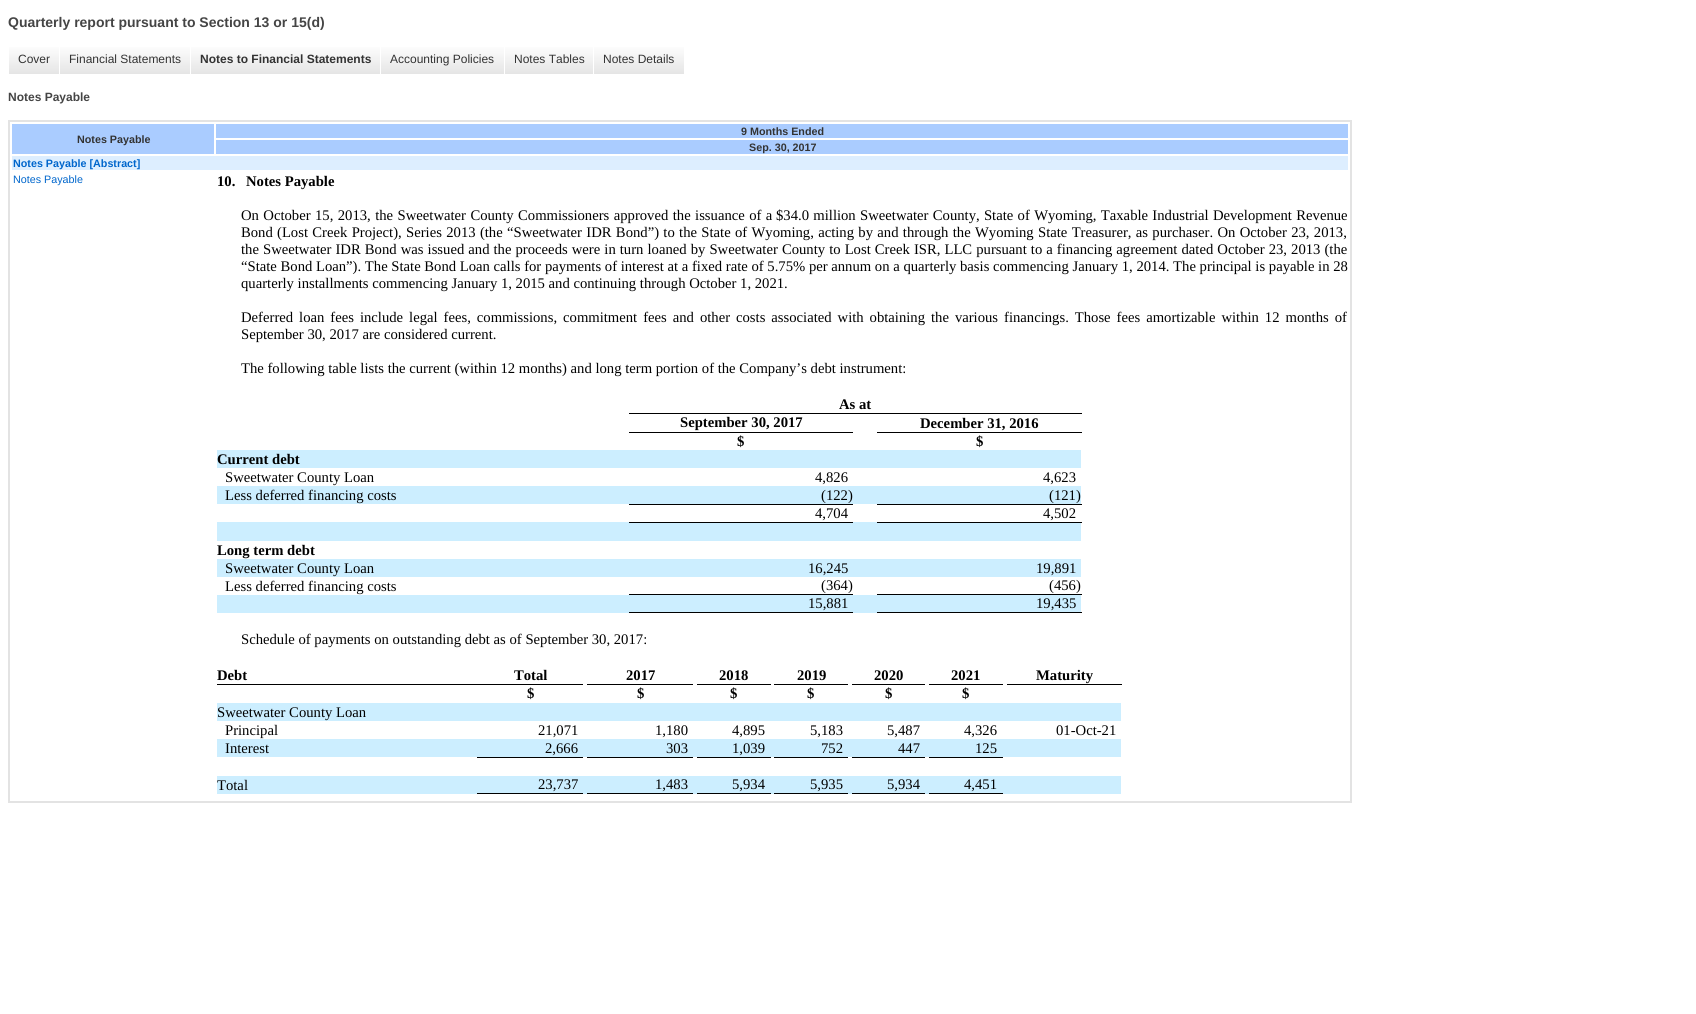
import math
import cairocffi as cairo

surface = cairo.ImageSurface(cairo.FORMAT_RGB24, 1696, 1014)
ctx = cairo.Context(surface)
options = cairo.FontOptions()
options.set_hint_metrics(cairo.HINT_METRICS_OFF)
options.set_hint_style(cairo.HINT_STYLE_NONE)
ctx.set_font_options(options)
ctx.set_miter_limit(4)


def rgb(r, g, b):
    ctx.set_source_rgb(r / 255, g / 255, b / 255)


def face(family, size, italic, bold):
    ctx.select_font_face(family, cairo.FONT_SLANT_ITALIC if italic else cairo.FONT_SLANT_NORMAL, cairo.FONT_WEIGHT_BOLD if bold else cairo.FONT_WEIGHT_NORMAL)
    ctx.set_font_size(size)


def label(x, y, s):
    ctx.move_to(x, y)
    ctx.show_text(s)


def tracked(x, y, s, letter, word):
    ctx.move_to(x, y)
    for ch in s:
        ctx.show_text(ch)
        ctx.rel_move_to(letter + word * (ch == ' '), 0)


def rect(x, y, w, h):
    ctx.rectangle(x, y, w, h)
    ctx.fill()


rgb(255, 255, 255)
ctx.paint()
face('Liberation Sans', 14, 0, 1)
rgb(69, 69, 69)
label(8, 27, 'Quarterly report pursuant to Section 13 or 15(d)')
gradient = cairo.LinearGradient(34, 44, 34, 74)
gradient.add_color_stop_rgba(0, 1, 1, 1, 1)
gradient.add_color_stop_rgba(1, 0.898, 0.898, 0.898, 1)
ctx.set_source(gradient)
rect(9, 47, 50, 27)
face('Liberation Sans', 12, 0, 0)
rgb(51, 51, 51)
label(18, 63, 'Cover')
gradient = cairo.LinearGradient(125, 44, 125, 74)
gradient.add_color_stop_rgba(0, 1, 1, 1, 1)
gradient.add_color_stop_rgba(1, 0.898, 0.898, 0.898, 1)
ctx.set_source(gradient)
rect(60, 47, 130, 27)
rgb(51, 51, 51)
label(69, 63, 'Financial Statements')
gradient = cairo.LinearGradient(286, 44, 286, 74)
gradient.add_color_stop_rgba(0, 1, 1, 1, 1)
gradient.add_color_stop_rgba(1, 0.898, 0.898, 0.898, 1)
ctx.set_source(gradient)
rect(191, 47, 189, 27)
face('Liberation Sans', 12, 0, 1)
rgb(51, 51, 51)
label(200, 63, 'Notes to Financial Statements')
gradient = cairo.LinearGradient(443, 44, 443, 74)
gradient.add_color_stop_rgba(0, 1, 1, 1, 1)
gradient.add_color_stop_rgba(1, 0.898, 0.898, 0.898, 1)
ctx.set_source(gradient)
rect(381, 47, 123, 27)
face('Liberation Sans', 12, 0, 0)
rgb(51, 51, 51)
label(390, 63, 'Accounting Policies')
gradient = cairo.LinearGradient(549, 44, 549, 74)
gradient.add_color_stop_rgba(0, 1, 1, 1, 1)
gradient.add_color_stop_rgba(1, 0.898, 0.898, 0.898, 1)
ctx.set_source(gradient)
rect(505, 47, 88, 27)
rgb(51, 51, 51)
label(514, 63, 'Notes Tables')
gradient = cairo.LinearGradient(639, 44, 639, 74)
gradient.add_color_stop_rgba(0, 1, 1, 1, 1)
gradient.add_color_stop_rgba(1, 0.898, 0.898, 0.898, 1)
ctx.set_source(gradient)
rect(594, 47, 90, 27)
rgb(51, 51, 51)
label(603, 63, 'Notes Details')
face('Liberation Sans', 12, 0, 1)
rgb(69, 69, 69)
label(8, 101, 'Notes Payable')
ctx.rectangle(9, 121, 1342, 681)
rgb(227, 227, 227)
ctx.stroke()
rgb(170, 204, 255)
rect(216, 124, 1132, 14)
face('Liberation Sans', 10.75, 0, 1)
rgb(51, 51, 51)
label(741, 135, '9 Months Ended')
rgb(170, 204, 255)
rect(12, 124, 202, 30)
rgb(51, 51, 51)
label(77, 143, 'Notes Payable')
rgb(170, 204, 255)
rect(216, 140, 1132, 14)
rgb(51, 51, 51)
label(749, 151, 'Sep. 30, 2017')
rgb(221, 238, 255)
rect(12, 156, 1336, 14)
rgb(0, 102, 204)
label(13, 167, 'Notes Payable [Abstract]')
face('Liberation Sans', 10.75, 0, 0)
label(13, 183, 'Notes Payable')
face('Liberation Serif', 14.67, 0, 1)
rgb(0, 0, 0)
label(217, 186, '10.')
label(246, 186, 'Notes Payable')
face('Liberation Serif', 14.67, 0, 0)
tracked(241, 220, 'On October 15, 2013, the Sweetwater County Commissioners approved the issuance of a', 0, 0.75)
tracked(776, 220, '$34.0 million Sweetwater County, State of Wyoming, Taxable Industrial Development Revenue', 0, 0.65)
label(241, 237, 'Bond')
tracked(277, 237, '(Lost Creek Project), Series 2013 (the “Sweetwater IDR Bond”) to the State of Wyoming, acting by and through the Wyoming State Treasurer, as purchaser. On October 23, 2013,', 0, 0.65)
tracked(241, 254, 'the Sweetwater IDR Bond was issued and the proceeds were in turn loaned by Sweetwater County to Lost Creek ISR, LLC pursuant to a financing agreement dated October 23, 2013 (the', 0, 0.4)
label(241, 271, '“State Bond Loan”). The State Bond Loan calls for payments of interest at a fixed rate of 5.75% per annum on a quarterly basis commencing January 1, 2014. The principal is payable in 28')
label(241, 288, 'quarterly installments commencing January 1, 2015 and continuing through October 1, 2021.')
tracked(241, 322, 'Deferred loan fees include legal fees, commissions, commitment fees and other costs associated with obtaining the various financings. Those fees amortizable within 12 months of', 0, 2.3)
label(241, 339, 'September 30, 2017 are considered current.')
label(241, 373, 'The following table lists the current (within 12 months) and long term portion of the Company’s debt instrument:')
rect(629, 413, 453, 1)
face('Liberation Serif', 14.67, 0, 1)
label(839, 409, 'As at')
rect(629, 432, 224, 1)
label(680, 427, 'September 30, 2017')
rect(877, 432, 205, 1)
label(920, 428, 'December 31, 2016')
label(737, 446, '$')
label(976, 446, '$')
rgb(204, 238, 255)
rect(217, 450, 864, 18)
rgb(0, 0, 0)
label(217, 464, 'Current debt')
face('Liberation Serif', 14.67, 0, 0)
label(225, 482, 'Sweetwater County Loan')
label(815, 482, '4,826')
label(1043, 482, '4,623')
rgb(204, 238, 255)
rect(217, 486, 864, 18)
rgb(0, 0, 0)
label(225, 500, 'Less deferred financing costs')
rect(629, 504, 224, 1)
label(821, 500, '(122)')
rect(877, 504, 205, 1)
label(1049, 500, '(121)')
rect(629, 522, 224, 1)
label(815, 518, '4,704')
rgb(204, 238, 255)
rect(853, 522, 25, 19)
rgb(0, 0, 0)
rect(877, 522, 205, 1)
label(1043, 518, '4,502')
rgb(204, 238, 255)
rect(217, 522, 412, 19)
rect(629, 523, 224, 18)
rect(878, 523, 203, 18)
face('Liberation Serif', 14.67, 0, 1)
rgb(0, 0, 0)
label(217, 555, 'Long term debt')
rgb(204, 238, 255)
rect(217, 559, 864, 18)
face('Liberation Serif', 14.67, 0, 0)
rgb(0, 0, 0)
label(225, 573, 'Sweetwater County Loan')
label(808, 573, '16,245')
label(1036, 573, '19,891')
label(225, 591, 'Less deferred financing costs')
rect(629, 594, 224, 1)
label(821, 590, '(364)')
rect(877, 594, 205, 1)
label(1049, 590, '(456)')
rgb(204, 238, 255)
rect(217, 595, 412, 18)
rect(629, 595, 224, 17)
rgb(0, 0, 0)
rect(629, 612, 224, 1)
label(808, 608, '15,881')
rgb(204, 238, 255)
rect(853, 595, 25, 18)
rect(878, 595, 203, 17)
rgb(0, 0, 0)
rect(877, 612, 205, 1)
label(1036, 608, '19,435')
label(241, 644, 'Schedule of payments on outstanding debt as of September 30, 2017:')
face('Liberation Serif', 14.67, 0, 1)
label(217, 680, 'Debt')
rect(217, 684, 366, 1)
label(514, 680, 'Total')
rect(587, 684, 106, 1)
label(626, 680, '2017')
rect(697, 684, 74, 1)
label(719, 680, '2018')
rect(774, 684, 74, 1)
label(797, 680, '2019')
rect(852, 684, 73, 1)
label(874, 680, '2020')
rect(929, 684, 74, 1)
label(951, 680, '2021')
rect(1007, 684, 115, 1)
label(1036, 680, 'Maturity')
label(527, 698, '$')
label(637, 698, '$')
label(730, 698, '$')
label(807, 698, '$')
label(885, 698, '$')
label(962, 698, '$')
rgb(204, 238, 255)
rect(217, 703, 904, 18)
face('Liberation Serif', 14.67, 0, 0)
rgb(0, 0, 0)
label(217, 717, 'Sweetwater County Loan')
label(225, 735, 'Principal')
label(538, 735, '21,071')
label(655, 735, '1,180')
label(732, 735, '4,895')
label(810, 735, '5,183')
label(887, 735, '5,487')
label(964, 735, '4,326')
label(1056, 735, '01-Oct-21')
rgb(204, 238, 255)
rect(217, 739, 904, 18)
rgb(0, 0, 0)
label(225, 753, 'Interest')
rect(477, 757, 106, 1)
label(545, 753, '2,666')
rect(587, 757, 106, 1)
label(666, 753, '303')
rect(697, 757, 74, 1)
label(732, 753, '1,039')
rect(774, 757, 74, 1)
label(821, 753, '752')
rect(852, 757, 73, 1)
label(898, 753, '447')
rect(929, 757, 74, 1)
label(975, 753, '125')
rgb(204, 238, 255)
rect(217, 776, 261, 18)
rgb(0, 0, 0)
label(217, 790, 'Total')
rgb(204, 238, 255)
rect(478, 776, 105, 17)
rgb(0, 0, 0)
rect(477, 793, 106, 1)
label(538, 789, '23,737')
rgb(204, 238, 255)
rect(583, 776, 5, 18)
rect(588, 776, 105, 17)
rgb(0, 0, 0)
rect(587, 793, 106, 1)
label(655, 789, '1,483')
rgb(204, 238, 255)
rect(693, 776, 5, 18)
rect(698, 776, 72, 17)
rect(770, 776, 5, 18)
rgb(0, 0, 0)
rect(697, 793, 74, 1)
label(732, 789, '5,934')
rgb(204, 238, 255)
rect(775, 776, 72, 17)
rect(847, 776, 5, 18)
rgb(0, 0, 0)
rect(774, 793, 74, 1)
label(810, 789, '5,935')
rgb(204, 238, 255)
rect(852, 776, 73, 17)
rgb(0, 0, 0)
rect(852, 793, 73, 1)
label(887, 789, '5,934')
rgb(204, 238, 255)
rect(925, 776, 5, 18)
rect(930, 776, 72, 17)
rect(1002, 776, 119, 18)
rgb(0, 0, 0)
rect(929, 793, 74, 1)
label(964, 789, '4,451')
surface.write_to_png('render.png')
